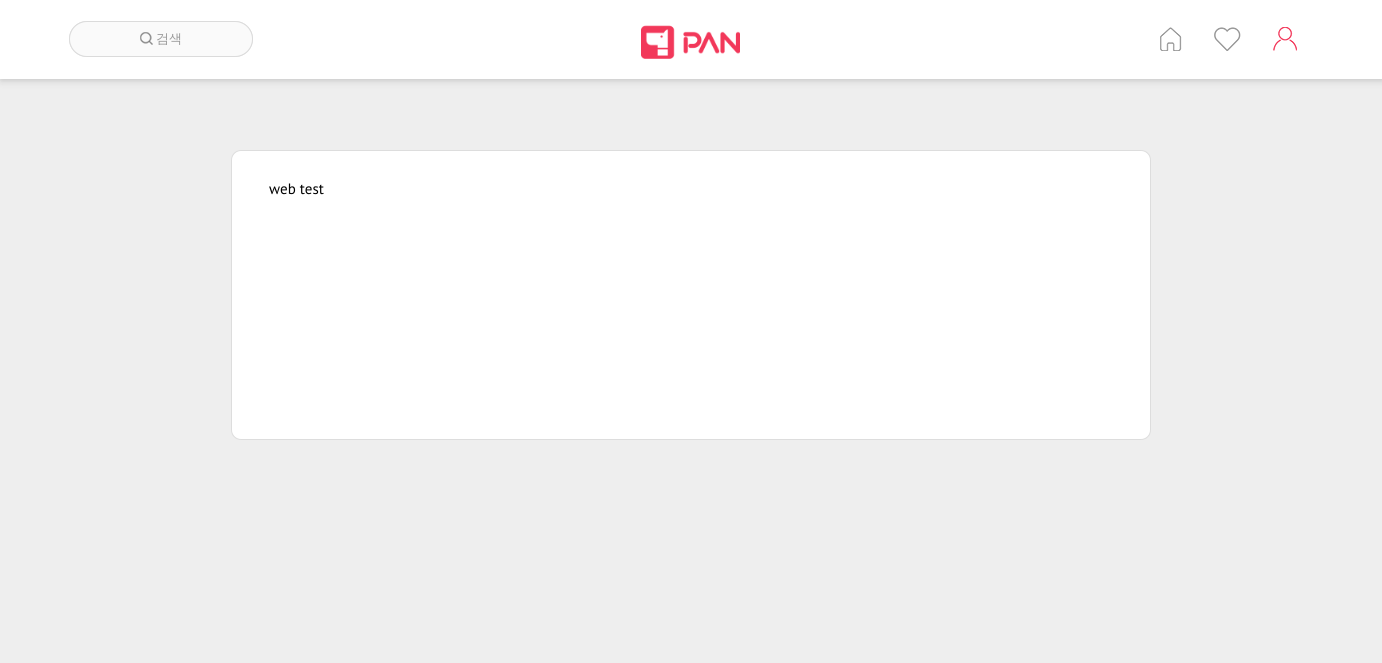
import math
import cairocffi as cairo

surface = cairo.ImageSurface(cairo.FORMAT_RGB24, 1382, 663)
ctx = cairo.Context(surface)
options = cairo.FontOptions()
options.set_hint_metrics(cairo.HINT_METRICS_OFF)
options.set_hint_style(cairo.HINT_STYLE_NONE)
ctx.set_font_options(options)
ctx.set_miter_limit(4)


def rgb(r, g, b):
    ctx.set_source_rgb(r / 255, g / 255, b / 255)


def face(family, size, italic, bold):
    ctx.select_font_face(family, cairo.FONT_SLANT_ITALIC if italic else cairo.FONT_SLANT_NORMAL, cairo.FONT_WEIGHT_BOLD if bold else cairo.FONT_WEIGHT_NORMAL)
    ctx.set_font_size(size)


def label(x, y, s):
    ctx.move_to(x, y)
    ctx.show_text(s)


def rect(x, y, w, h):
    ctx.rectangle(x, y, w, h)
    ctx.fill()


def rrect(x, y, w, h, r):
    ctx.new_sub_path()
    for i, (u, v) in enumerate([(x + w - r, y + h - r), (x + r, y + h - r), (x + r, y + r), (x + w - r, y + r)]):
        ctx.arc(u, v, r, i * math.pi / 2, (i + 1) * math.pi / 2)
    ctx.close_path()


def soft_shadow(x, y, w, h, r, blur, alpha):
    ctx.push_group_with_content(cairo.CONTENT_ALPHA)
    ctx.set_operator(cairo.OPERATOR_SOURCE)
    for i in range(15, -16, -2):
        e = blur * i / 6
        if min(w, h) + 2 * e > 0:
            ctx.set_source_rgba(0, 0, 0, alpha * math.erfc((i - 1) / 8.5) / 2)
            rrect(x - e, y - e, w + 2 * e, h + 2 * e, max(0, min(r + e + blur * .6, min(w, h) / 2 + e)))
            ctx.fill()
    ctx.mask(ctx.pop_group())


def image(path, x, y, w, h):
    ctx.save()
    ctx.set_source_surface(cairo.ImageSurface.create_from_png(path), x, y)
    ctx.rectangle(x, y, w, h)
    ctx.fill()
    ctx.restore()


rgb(238, 238, 238)
ctx.paint()
rgb(0, 0, 0)
soft_shadow(1, 0, 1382, 80, 0, 4, 0.2)
rgb(255, 255, 255)
rect(0, 0, 1382, 79)
rrect(69.5, 21.5, 183, 35, 17.5)
rgb(221, 221, 221)
ctx.set_line_width(1)
ctx.stroke()
rgb(250, 250, 250)
rrect(69.5, 21.5, 183, 35, 17.5)
ctx.fill_preserve()
rgb(219, 219, 219)
ctx.stroke()
image('image0.png', 140, 32, 13, 13)
face('WenQuanYi Zen Hei Medium', 13, 0, 0)
rgb(153, 153, 153)
label(156, 43, '검색')
image('image1.png', 641, 25, 99, 34)
image('image2.png', 1160, 27, 22, 24)
image('image3.png', 1214, 27, 27, 24)
image('image4.png', 1273, 27, 24, 24)
rgb(255, 255, 255)
rrect(231.5, 150.5, 919, 289, 9.5)
ctx.fill_preserve()
rgb(221, 221, 221)
ctx.stroke()
face('PT Sans', 15, 0, 0)
rgb(0, 0, 0)
label(269, 194, 'web test')
surface.write_to_png('render.png')
